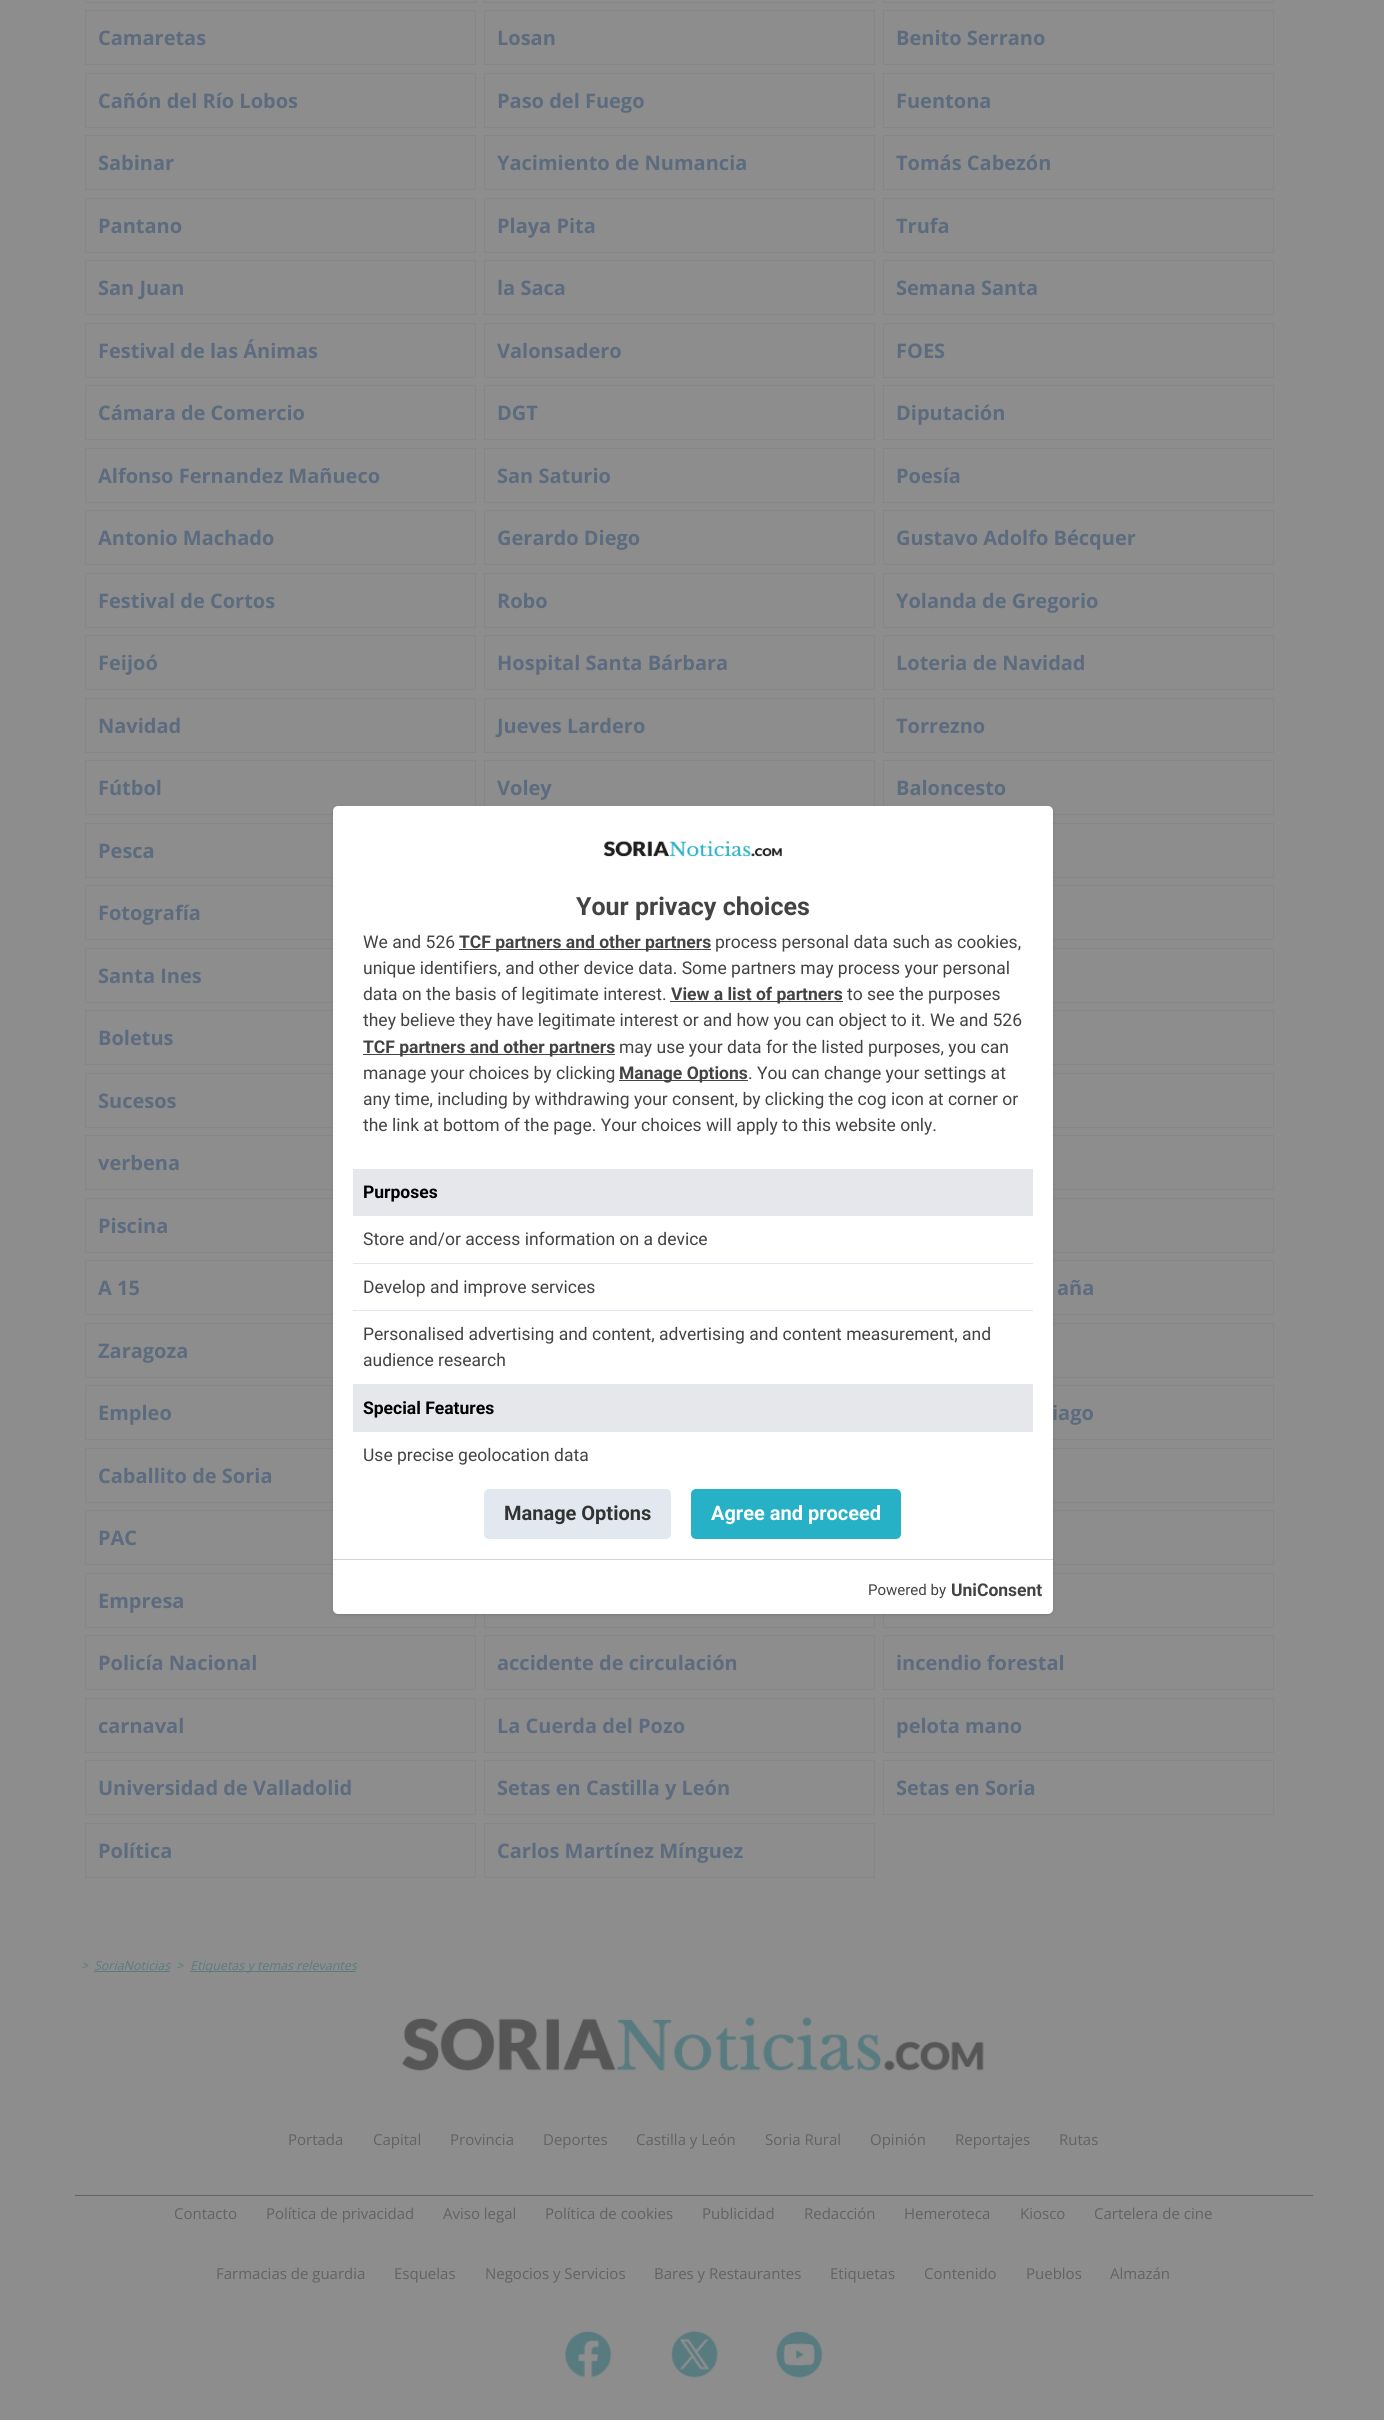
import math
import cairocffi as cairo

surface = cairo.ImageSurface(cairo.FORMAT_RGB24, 1384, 2420)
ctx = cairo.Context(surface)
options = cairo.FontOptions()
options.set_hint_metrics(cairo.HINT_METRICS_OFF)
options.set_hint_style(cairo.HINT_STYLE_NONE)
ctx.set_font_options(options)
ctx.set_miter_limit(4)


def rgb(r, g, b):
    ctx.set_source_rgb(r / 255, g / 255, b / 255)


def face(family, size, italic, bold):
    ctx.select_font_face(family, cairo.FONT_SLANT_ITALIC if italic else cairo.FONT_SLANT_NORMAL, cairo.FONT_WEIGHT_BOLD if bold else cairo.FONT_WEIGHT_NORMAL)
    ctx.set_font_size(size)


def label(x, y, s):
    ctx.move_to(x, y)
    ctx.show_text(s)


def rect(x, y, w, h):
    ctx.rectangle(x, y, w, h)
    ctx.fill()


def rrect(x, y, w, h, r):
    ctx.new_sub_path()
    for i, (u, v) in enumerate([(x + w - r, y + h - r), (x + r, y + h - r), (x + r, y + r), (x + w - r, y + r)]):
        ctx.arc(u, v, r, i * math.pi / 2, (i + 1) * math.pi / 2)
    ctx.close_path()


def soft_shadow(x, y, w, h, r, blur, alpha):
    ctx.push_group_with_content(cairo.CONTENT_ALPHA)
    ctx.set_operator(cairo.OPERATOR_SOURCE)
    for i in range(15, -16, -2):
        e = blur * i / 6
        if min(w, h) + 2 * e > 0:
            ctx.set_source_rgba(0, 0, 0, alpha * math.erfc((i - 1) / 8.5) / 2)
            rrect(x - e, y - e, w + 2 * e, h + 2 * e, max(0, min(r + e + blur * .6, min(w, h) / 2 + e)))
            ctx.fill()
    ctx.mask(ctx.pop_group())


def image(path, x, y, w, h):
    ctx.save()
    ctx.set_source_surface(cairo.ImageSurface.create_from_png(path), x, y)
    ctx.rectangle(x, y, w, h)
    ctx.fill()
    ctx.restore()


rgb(141, 141, 141)
ctx.paint()
ctx.rectangle(85.5, -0.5, 390, 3)
rgb(134, 134, 134)
ctx.set_line_width(1)
ctx.stroke()
ctx.rectangle(484.5, -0.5, 390, 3)
ctx.stroke()
ctx.rectangle(883.5, -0.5, 390, 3)
ctx.stroke()
ctx.rectangle(85.5, 10.5, 390, 54)
ctx.stroke()
face('Open Sans', 20, 0, 1)
rgb(93, 107, 127)
label(98, 45, 'Camaretas')
ctx.rectangle(484.5, 10.5, 390, 54)
rgb(134, 134, 134)
ctx.stroke()
rgb(93, 107, 127)
label(497, 45, 'Losan')
ctx.rectangle(883.5, 10.5, 390, 54)
rgb(134, 134, 134)
ctx.stroke()
rgb(93, 107, 127)
label(896, 45, 'Benito Serrano')
ctx.rectangle(85.5, 73.5, 390, 54)
rgb(134, 134, 134)
ctx.stroke()
rgb(93, 107, 127)
label(98, 108, 'Cañón del Río Lobos')
ctx.rectangle(484.5, 73.5, 390, 54)
rgb(134, 134, 134)
ctx.stroke()
rgb(93, 107, 127)
label(497, 108, 'Paso del Fuego')
ctx.rectangle(883.5, 73.5, 390, 54)
rgb(134, 134, 134)
ctx.stroke()
rgb(93, 107, 127)
label(896, 108, 'Fuentona')
ctx.rectangle(85.5, 135.5, 390, 54)
rgb(134, 134, 134)
ctx.stroke()
rgb(93, 107, 127)
label(98, 170, 'Sabinar')
ctx.rectangle(484.5, 135.5, 390, 54)
rgb(134, 134, 134)
ctx.stroke()
rgb(93, 107, 127)
label(497, 170, 'Yacimiento de Numancia')
ctx.rectangle(883.5, 135.5, 390, 54)
rgb(134, 134, 134)
ctx.stroke()
rgb(93, 107, 127)
label(896, 170, 'Tomás Cabezón')
ctx.rectangle(85.5, 198.5, 390, 54)
rgb(134, 134, 134)
ctx.stroke()
rgb(93, 107, 127)
label(98, 233, 'Pantano')
ctx.rectangle(484.5, 198.5, 390, 54)
rgb(134, 134, 134)
ctx.stroke()
rgb(93, 107, 127)
label(497, 233, 'Playa Pita')
ctx.rectangle(883.5, 198.5, 390, 54)
rgb(134, 134, 134)
ctx.stroke()
rgb(93, 107, 127)
label(896, 233, 'Trufa')
ctx.rectangle(85.5, 260.5, 390, 54)
rgb(134, 134, 134)
ctx.stroke()
rgb(93, 107, 127)
label(98, 295, 'San Juan')
ctx.rectangle(484.5, 260.5, 390, 54)
rgb(134, 134, 134)
ctx.stroke()
rgb(93, 107, 127)
label(497, 295, 'la Saca')
ctx.rectangle(883.5, 260.5, 390, 54)
rgb(134, 134, 134)
ctx.stroke()
rgb(93, 107, 127)
label(896, 295, 'Semana Santa')
ctx.rectangle(85.5, 323.5, 390, 54)
rgb(134, 134, 134)
ctx.stroke()
rgb(93, 107, 127)
label(98, 358, 'Festival de las Ánimas')
ctx.rectangle(484.5, 323.5, 390, 54)
rgb(134, 134, 134)
ctx.stroke()
rgb(93, 107, 127)
label(497, 358, 'Valonsadero')
ctx.rectangle(883.5, 323.5, 390, 54)
rgb(134, 134, 134)
ctx.stroke()
rgb(93, 107, 127)
label(896, 358, 'FOES')
ctx.rectangle(85.5, 385.5, 390, 54)
rgb(134, 134, 134)
ctx.stroke()
rgb(93, 107, 127)
label(98, 420, 'Cámara de Comercio')
ctx.rectangle(484.5, 385.5, 390, 54)
rgb(134, 134, 134)
ctx.stroke()
rgb(93, 107, 127)
label(497, 420, 'DGT')
ctx.rectangle(883.5, 385.5, 390, 54)
rgb(134, 134, 134)
ctx.stroke()
rgb(93, 107, 127)
label(896, 420, 'Diputación')
ctx.rectangle(85.5, 448.5, 390, 54)
rgb(134, 134, 134)
ctx.stroke()
rgb(93, 107, 127)
label(98, 483, 'Alfonso Fernandez Mañueco')
ctx.rectangle(484.5, 448.5, 390, 54)
rgb(134, 134, 134)
ctx.stroke()
rgb(93, 107, 127)
label(497, 483, 'San Saturio')
ctx.rectangle(883.5, 448.5, 390, 54)
rgb(134, 134, 134)
ctx.stroke()
rgb(93, 107, 127)
label(896, 483, 'Poesía')
ctx.rectangle(85.5, 510.5, 390, 54)
rgb(134, 134, 134)
ctx.stroke()
rgb(93, 107, 127)
label(98, 545, 'Antonio Machado')
ctx.rectangle(484.5, 510.5, 390, 54)
rgb(134, 134, 134)
ctx.stroke()
rgb(93, 107, 127)
label(497, 545, 'Gerardo Diego')
ctx.rectangle(883.5, 510.5, 390, 54)
rgb(134, 134, 134)
ctx.stroke()
rgb(93, 107, 127)
label(896, 545, 'Gustavo Adolfo Bécquer')
ctx.rectangle(85.5, 573.5, 390, 54)
rgb(134, 134, 134)
ctx.stroke()
rgb(93, 107, 127)
label(98, 608, 'Festival de Cortos')
ctx.rectangle(484.5, 573.5, 390, 54)
rgb(134, 134, 134)
ctx.stroke()
rgb(93, 107, 127)
label(497, 608, 'Robo')
ctx.rectangle(883.5, 573.5, 390, 54)
rgb(134, 134, 134)
ctx.stroke()
rgb(93, 107, 127)
label(896, 608, 'Yolanda de Gregorio')
ctx.rectangle(85.5, 635.5, 390, 54)
rgb(134, 134, 134)
ctx.stroke()
rgb(93, 107, 127)
label(98, 670, 'Feijoó')
ctx.rectangle(484.5, 635.5, 390, 54)
rgb(134, 134, 134)
ctx.stroke()
rgb(93, 107, 127)
label(497, 670, 'Hospital Santa Bárbara')
ctx.rectangle(883.5, 635.5, 390, 54)
rgb(134, 134, 134)
ctx.stroke()
rgb(93, 107, 127)
label(896, 670, 'Loteria de Navidad')
ctx.rectangle(85.5, 698.5, 390, 54)
rgb(134, 134, 134)
ctx.stroke()
rgb(93, 107, 127)
label(98, 733, 'Navidad')
ctx.rectangle(484.5, 698.5, 390, 54)
rgb(134, 134, 134)
ctx.stroke()
rgb(93, 107, 127)
label(497, 733, 'Jueves Lardero')
ctx.rectangle(883.5, 698.5, 390, 54)
rgb(134, 134, 134)
ctx.stroke()
rgb(93, 107, 127)
label(896, 733, 'Torrezno')
ctx.rectangle(85.5, 760.5, 390, 54)
rgb(134, 134, 134)
ctx.stroke()
rgb(93, 107, 127)
label(98, 795, 'Fútbol')
ctx.rectangle(484.5, 760.5, 390, 54)
rgb(134, 134, 134)
ctx.stroke()
rgb(93, 107, 127)
label(497, 795, 'Voley')
ctx.rectangle(883.5, 760.5, 390, 54)
rgb(134, 134, 134)
ctx.stroke()
rgb(93, 107, 127)
label(896, 795, 'Baloncesto')
ctx.rectangle(85.5, 823.5, 390, 54)
rgb(134, 134, 134)
ctx.stroke()
rgb(93, 107, 127)
label(98, 858, 'Pesca')
ctx.rectangle(883.5, 823.5, 390, 54)
rgb(134, 134, 134)
ctx.stroke()
ctx.rectangle(85.5, 885.5, 390, 54)
ctx.stroke()
rgb(93, 107, 127)
label(98, 920, 'Fotografía')
ctx.rectangle(883.5, 885.5, 390, 54)
rgb(134, 134, 134)
ctx.stroke()
ctx.rectangle(85.5, 948.5, 390, 54)
ctx.stroke()
rgb(93, 107, 127)
label(98, 983, 'Santa Ines')
ctx.rectangle(883.5, 948.5, 390, 54)
rgb(134, 134, 134)
ctx.stroke()
ctx.rectangle(85.5, 1010.5, 390, 54)
ctx.stroke()
rgb(93, 107, 127)
label(98, 1045, 'Boletus')
ctx.rectangle(883.5, 1010.5, 390, 54)
rgb(134, 134, 134)
ctx.stroke()
ctx.rectangle(85.5, 1073.5, 390, 54)
ctx.stroke()
rgb(93, 107, 127)
label(98, 1108, 'Sucesos')
ctx.rectangle(883.5, 1073.5, 390, 54)
rgb(134, 134, 134)
ctx.stroke()
ctx.rectangle(85.5, 1135.5, 390, 54)
ctx.stroke()
rgb(93, 107, 127)
label(98, 1170, 'verbena')
ctx.rectangle(883.5, 1135.5, 390, 54)
rgb(134, 134, 134)
ctx.stroke()
ctx.rectangle(85.5, 1198.5, 390, 54)
ctx.stroke()
rgb(93, 107, 127)
label(98, 1233, 'Piscina')
ctx.rectangle(883.5, 1198.5, 390, 54)
rgb(134, 134, 134)
ctx.stroke()
ctx.rectangle(85.5, 1260.5, 390, 54)
ctx.stroke()
rgb(93, 107, 127)
label(98, 1295, 'A 15')
ctx.rectangle(883.5, 1260.5, 390, 54)
rgb(134, 134, 134)
ctx.stroke()
rgb(93, 107, 127)
label(1057, 1295, 'aña')
ctx.rectangle(85.5, 1323.5, 390, 54)
rgb(134, 134, 134)
ctx.stroke()
rgb(93, 107, 127)
label(98, 1358, 'Zaragoza')
ctx.rectangle(883.5, 1323.5, 390, 54)
rgb(134, 134, 134)
ctx.stroke()
ctx.rectangle(85.5, 1385.5, 390, 54)
ctx.stroke()
rgb(93, 107, 127)
label(98, 1420, 'Empleo')
ctx.rectangle(883.5, 1385.5, 390, 54)
rgb(134, 134, 134)
ctx.stroke()
rgb(93, 107, 127)
label(1052, 1420, 'iago')
ctx.rectangle(85.5, 1448.5, 390, 54)
rgb(134, 134, 134)
ctx.stroke()
rgb(93, 107, 127)
label(98, 1483, 'Caballito de Soria')
ctx.rectangle(883.5, 1448.5, 390, 54)
rgb(134, 134, 134)
ctx.stroke()
ctx.rectangle(85.5, 1510.5, 390, 54)
ctx.stroke()
rgb(93, 107, 127)
label(98, 1545, 'PAC')
ctx.rectangle(883.5, 1510.5, 390, 54)
rgb(134, 134, 134)
ctx.stroke()
ctx.rectangle(85.5, 1573.5, 390, 54)
ctx.stroke()
rgb(93, 107, 127)
label(98, 1608, 'Empresa')
ctx.rectangle(484.5, 1573.5, 390, 54)
rgb(134, 134, 134)
ctx.stroke()
ctx.rectangle(883.5, 1573.5, 390, 54)
ctx.stroke()
ctx.rectangle(85.5, 1635.5, 390, 54)
ctx.stroke()
rgb(93, 107, 127)
label(98, 1670, 'Policía Nacional')
ctx.rectangle(484.5, 1635.5, 390, 54)
rgb(134, 134, 134)
ctx.stroke()
rgb(93, 107, 127)
label(497, 1670, 'accidente de circulación')
ctx.rectangle(883.5, 1635.5, 390, 54)
rgb(134, 134, 134)
ctx.stroke()
rgb(93, 107, 127)
label(896, 1670, 'incendio forestal')
ctx.rectangle(85.5, 1698.5, 390, 54)
rgb(134, 134, 134)
ctx.stroke()
rgb(93, 107, 127)
label(98, 1733, 'carnaval')
ctx.rectangle(484.5, 1698.5, 390, 54)
rgb(134, 134, 134)
ctx.stroke()
rgb(93, 107, 127)
label(497, 1733, 'La Cuerda del Pozo')
ctx.rectangle(883.5, 1698.5, 390, 54)
rgb(134, 134, 134)
ctx.stroke()
rgb(93, 107, 127)
label(896, 1733, 'pelota mano')
ctx.rectangle(85.5, 1760.5, 390, 54)
rgb(134, 134, 134)
ctx.stroke()
rgb(93, 107, 127)
label(98, 1795, 'Universidad de Valladolid')
ctx.rectangle(484.5, 1760.5, 390, 54)
rgb(134, 134, 134)
ctx.stroke()
rgb(93, 107, 127)
label(497, 1795, 'Setas en Castilla y León')
ctx.rectangle(883.5, 1760.5, 390, 54)
rgb(134, 134, 134)
ctx.stroke()
rgb(93, 107, 127)
label(896, 1795, 'Setas en Soria')
ctx.rectangle(85.5, 1823.5, 390, 54)
rgb(134, 134, 134)
ctx.stroke()
rgb(93, 107, 127)
label(98, 1858, 'Política')
ctx.rectangle(484.5, 1823.5, 390, 54)
rgb(134, 134, 134)
ctx.stroke()
rgb(93, 107, 127)
label(497, 1858, 'Carlos Martínez Mínguez')
face('Open Sans', 12.5, 1, 0)
rgb(88, 123, 128)
label(81, 1970, '>')
label(94, 1970, 'SoriaNoticias')
rect(94, 1971, 76, 1)
label(176, 1970, '>')
rect(190, 1971, 166, 1)
label(190, 1970, 'Etiquetas y temas relevantes')
image('image0.png', 401, 2016, 583, 55)
face('Open Sans', 15, 0, 0)
rgb(99, 98, 98)
label(288, 2145, 'Portada')
label(373, 2145, 'Capital')
label(450, 2145, 'Provincia')
label(543, 2145, 'Deportes')
label(636, 2145, 'Castilla y León')
label(765, 2145, 'Soria Rural')
label(870, 2145, 'Opinión')
label(955, 2145, 'Reportajes')
label(1059, 2145, 'Rutas')
rect(75, 2195, 1238, 1)
label(174, 2219, 'Contacto')
label(266, 2219, 'Política de privacidad')
label(443, 2219, 'Aviso legal')
label(545, 2219, 'Política de cookies')
label(702, 2219, 'Publicidad')
label(804, 2219, 'Redacción')
label(904, 2219, 'Hemeroteca')
label(1020, 2219, 'Kiosco')
label(1094, 2219, 'Cartelera de cine')
label(216, 2279, 'Farmacias de guardia')
label(394, 2279, 'Esquelas')
label(485, 2279, 'Negocios y Servicios')
label(654, 2279, 'Bares y Restaurantes')
label(830, 2279, 'Etiquetas')
label(924, 2279, 'Contenido')
label(1026, 2279, 'Pueblos')
label(1110, 2279, 'Almazán')
image('image1.png', 564, 2331, 48, 47)
image('image2.png', 671, 2330, 47, 48)
image('image3.png', 775, 2331, 48, 47)
rgb(0, 0, 0)
soft_shadow(334, 809, 717, 805, 4, 1, 0.1)
soft_shadow(333, 808, 720, 807, 5, 2, 0.1)
rgb(255, 255, 255)
rrect(333, 806, 720, 808, 5)
ctx.fill()
image('image4.png', 603, 840, 179, 17)
face('Roboto', 25, 0, 1)
rgb(67, 67, 67)
label(576, 915, 'Your privacy choices')
face('Roboto', 17.5, 0, 0)
label(363, 948, 'We and 526')
rect(459, 949, 252, 1)
face('Roboto', 17.5, 0, 1)
label(459, 948, 'TCF partners and other partners')
face('Roboto', 17.5, 0, 0)
label(715, 948, 'process personal data such as cookies,')
label(363, 974, 'unique identifiers, and other device data. Some partners may process your personal')
label(363, 1000, 'data on the basis of legitimate interest.')
rect(670, 1001, 173, 1)
face('Roboto', 17.5, 0, 1)
label(671, 1000, 'View a list of partners')
face('Roboto', 17.5, 0, 0)
label(847, 1000, 'to see the purposes')
label(363, 1026, 'they believe they have legitimate interest or and how you can object to it. We and 526')
rect(363, 1054, 252, 1)
face('Roboto', 17.5, 0, 1)
label(363, 1053, 'TCF partners and other partners')
face('Roboto', 17.5, 0, 0)
label(619, 1053, 'may use your data for the listed purposes, you can')
label(363, 1079, 'manage your choices by clicking')
rect(619, 1080, 129, 1)
face('Roboto', 17.5, 0, 1)
label(619, 1079, 'Manage Options')
face('Roboto', 17.5, 0, 0)
label(748, 1079, '. You can change your settings at')
label(363, 1105, 'any time, including by withdrawing your consent, by clicking the cog icon at corner or')
label(363, 1131, 'the link at bottom of the page. Your choices will apply to this website only.')
rgb(229, 231, 235)
rect(353, 1169, 680, 46)
rgb(226, 232, 240)
rect(353, 1215, 680, 1)
face('Roboto', 17.5, 0, 1)
rgb(0, 0, 0)
label(363, 1198, 'Purposes')
rgb(226, 232, 240)
rect(353, 1263, 680, 1)
face('Roboto', 17.5, 0, 0)
rgb(67, 67, 67)
label(363, 1245, 'Store and/or access information on a device')
rgb(226, 232, 240)
rect(353, 1310, 680, 1)
rgb(67, 67, 67)
label(363, 1293, 'Develop and improve services')
rgb(226, 232, 240)
rect(353, 1384, 680, 1)
rgb(67, 67, 67)
label(363, 1340, 'Personalised advertising and content, advertising and content measurement, and')
label(363, 1366, 'audience research')
rgb(229, 231, 235)
rect(353, 1385, 680, 46)
rgb(226, 232, 240)
rect(353, 1431, 680, 1)
face('Roboto', 17.5, 0, 1)
rgb(0, 0, 0)
label(363, 1414, 'Special Features')
face('Roboto', 17.5, 0, 0)
rgb(67, 67, 67)
label(363, 1461, 'Use precise geolocation data')
rgb(226, 232, 240)
rrect(484, 1489, 187, 50, 5)
ctx.fill()
face('Roboto', 20, 0, 1)
rgb(51, 51, 51)
label(504, 1520, 'Manage Options')
rgb(39, 177, 198)
rrect(691, 1489, 210, 50, 5)
ctx.fill()
rgb(255, 255, 255)
label(711, 1520, 'Agree and proceed')
rgb(209, 213, 219)
rect(333, 1559, 720, 1)
face('Roboto', 15, 0, 0)
rgb(67, 67, 67)
label(868, 1595, 'Powered by')
face('Roboto', 17.5, 0, 1)
label(951, 1596, 'UniConsent')
surface.write_to_png('render.png')
